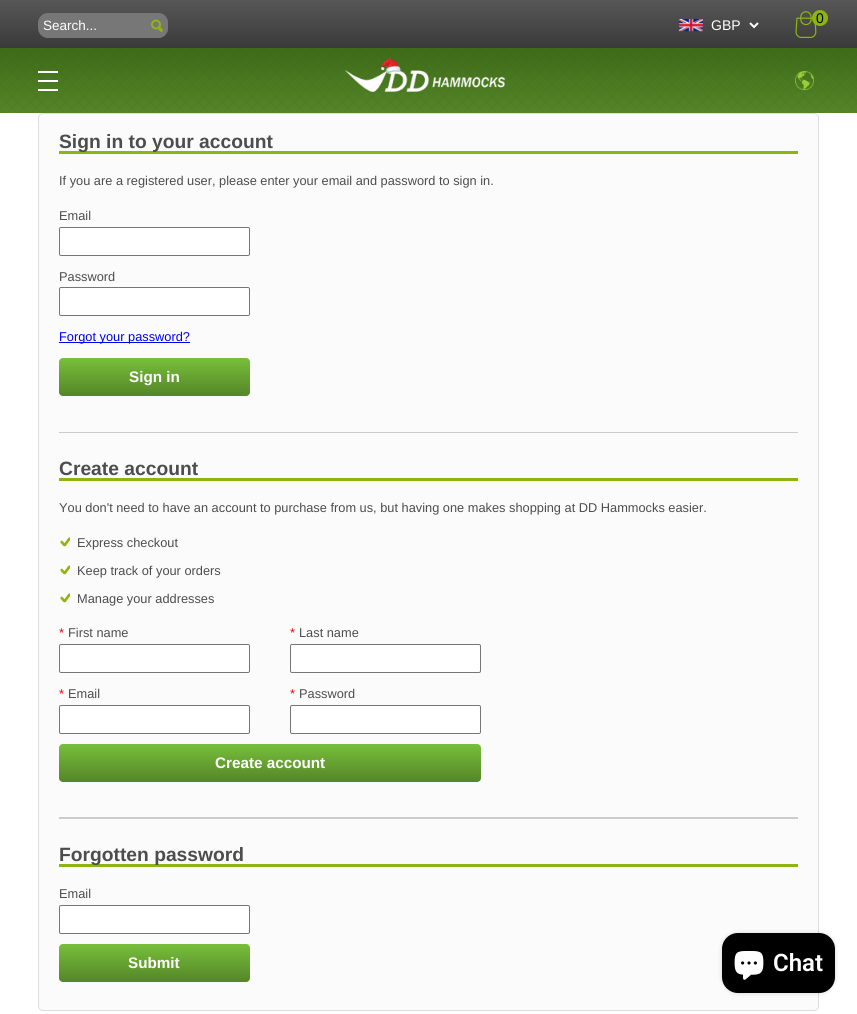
import math
import cairocffi as cairo

surface = cairo.ImageSurface(cairo.FORMAT_RGB24, 857, 1014)
ctx = cairo.Context(surface)
options = cairo.FontOptions()
options.set_hint_metrics(cairo.HINT_METRICS_OFF)
options.set_hint_style(cairo.HINT_STYLE_NONE)
ctx.set_font_options(options)
ctx.set_miter_limit(4)


def rgb(r, g, b):
    ctx.set_source_rgb(r / 255, g / 255, b / 255)


def face(family, size, italic, bold):
    ctx.select_font_face(family, cairo.FONT_SLANT_ITALIC if italic else cairo.FONT_SLANT_NORMAL, cairo.FONT_WEIGHT_BOLD if bold else cairo.FONT_WEIGHT_NORMAL)
    ctx.set_font_size(size)


def label(x, y, s):
    ctx.move_to(x, y)
    ctx.show_text(s)


def rect(x, y, w, h):
    ctx.rectangle(x, y, w, h)
    ctx.fill()


def rrect(x, y, w, h, r):
    ctx.new_sub_path()
    for i, (u, v) in enumerate([(x + w - r, y + h - r), (x + r, y + h - r), (x + r, y + r), (x + w - r, y + r)]):
        ctx.arc(u, v, r, i * math.pi / 2, (i + 1) * math.pi / 2)
    ctx.close_path()


def soft_shadow(x, y, w, h, r, blur, alpha):
    ctx.push_group_with_content(cairo.CONTENT_ALPHA)
    ctx.set_operator(cairo.OPERATOR_SOURCE)
    for i in range(15, -16, -2):
        e = blur * i / 6
        if min(w, h) + 2 * e > 0:
            ctx.set_source_rgba(0, 0, 0, alpha * math.erfc((i - 1) / 8.5) / 2)
            rrect(x - e, y - e, w + 2 * e, h + 2 * e, max(0, min(r + e + blur * .6, min(w, h) / 2 + e)))
            ctx.fill()
    ctx.mask(ctx.pop_group())


def image(path, x, y, w, h):
    ctx.save()
    ctx.set_source_surface(cairo.ImageSurface.create_from_png(path), x, y)
    ctx.rectangle(x, y, w, h)
    ctx.fill()
    ctx.restore()


rgb(255, 255, 255)
ctx.paint()
gradient = cairo.LinearGradient(429, 48, 429, 0)
gradient.add_color_stop_rgba(0, 0.227, 0.227, 0.227, 1)
gradient.add_color_stop_rgba(1, 0.341, 0.341, 0.341, 1)
ctx.set_source(gradient)
rect(0, 0, 857, 48)
image('image0.png', 795, 11, 22, 27)
rgb(142, 180, 15)
ctx.arc(820, 18, 8, 0, 2 * math.pi)
ctx.fill()
face('Liberation Sans', 14, 0, 0)
rgb(0, 0, 0)
label(816, 23, '0')
rgb(119, 119, 119)
rrect(38, 13, 130, 25, 10)
ctx.fill()
face('Liberation Sans', 13.5, 0, 0)
rgb(255, 255, 255)
label(43, 30, 'Search...')
rgb(119, 119, 119)
rrect(148, 13, 20, 25, 10)
ctx.fill()
image('image1.png', 151, 19, 12, 13)
image('image2.png', 678, 19, 25, 13)
ctx.new_path()
ctx.move_to(750, 23)
ctx.line_to(754, 27)
ctx.line_to(758, 23)
rgb(255, 255, 255)
ctx.stroke()
face('Liberation Sans', 14, 0, 0)
label(711, 30, 'GBP')
image('image3.png', 0, 48, 857, 65)
rect(38, 71, 20, 2)
rect(38, 80, 20, 2)
rect(38, 89, 20, 2)
image('image4.png', 345, 58, 160, 34)
image('image5.png', 795, 71, 19, 19)
rgb(251, 251, 251)
rrect(38.5, 113.5, 780, 897, 4.5)
ctx.fill_preserve()
rgb(221, 221, 221)
ctx.set_line_width(1)
ctx.stroke()
rgb(142, 180, 15)
rect(59, 151, 739, 3)
face('Liberation Sans', 19.25, 0, 1)
rgb(77, 77, 77)
label(59, 148, 'Sign in to your account')
face('Liberation Sans', 12.8, 0, 0)
label(59, 185, 'If you are a registered user, please enter your email and password to sign in.')
label(59, 220, 'Email')
rgb(255, 255, 255)
rrect(59.5, 227.5, 190, 28, 1.5)
ctx.fill_preserve()
rgb(118, 118, 118)
ctx.stroke()
rgb(77, 77, 77)
label(59, 281, 'Password')
rgb(255, 255, 255)
rrect(59.5, 287.5, 190, 28, 1.5)
ctx.fill_preserve()
rgb(118, 118, 118)
ctx.stroke()
rgb(0, 0, 238)
rect(59, 342, 131, 1)
label(59, 341, 'Forgot your password?')
gradient = cairo.LinearGradient(155, 396, 155, 358)
gradient.add_color_stop_rgba(0, 0.329, 0.525, 0.157, 1)
gradient.add_color_stop_rgba(1, 0.471, 0.749, 0.231, 1)
ctx.set_source(gradient)
rrect(59, 358, 191, 38, 4)
ctx.fill()
face('Liberation Sans', 15.25, 0, 1)
rgb(255, 255, 255)
label(129, 382, 'Sign in')
rgb(204, 204, 204)
rect(59, 432, 739, 1)
rgb(142, 180, 15)
rect(59, 478, 739, 3)
face('Liberation Sans', 19.25, 0, 1)
rgb(77, 77, 77)
label(59, 475, 'Create account')
face('Liberation Sans', 12.8, 0, 0)
label(59, 512, 'You don\'t need to have an account to purchase from us, but having one makes shopping at DD Hammocks easier.')
image('image6.png', 60, 537, 10, 10)
label(77, 547, 'Express checkout')
image('image6.png', 60, 565, 10, 10)
label(77, 575, 'Keep track of your orders')
image('image6.png', 60, 593, 10, 10)
label(77, 603, 'Manage your addresses')
rgb(255, 0, 0)
label(59, 637, '*')
rgb(77, 77, 77)
label(68, 637, 'First name')
rgb(255, 255, 255)
rrect(59.5, 644.5, 190, 28, 1.5)
ctx.fill_preserve()
rgb(118, 118, 118)
ctx.stroke()
rgb(255, 0, 0)
label(290, 637, '*')
rgb(77, 77, 77)
label(299, 637, 'Last name')
rgb(255, 255, 255)
rrect(290.5, 644.5, 190, 28, 1.5)
ctx.fill_preserve()
rgb(118, 118, 118)
ctx.stroke()
rgb(255, 0, 0)
label(59, 698, '*')
rgb(77, 77, 77)
label(68, 698, 'Email')
rgb(255, 255, 255)
rrect(59.5, 705.5, 190, 28, 1.5)
ctx.fill_preserve()
rgb(118, 118, 118)
ctx.stroke()
rgb(255, 0, 0)
label(290, 698, '*')
rgb(77, 77, 77)
label(299, 698, 'Password')
rgb(255, 255, 255)
rrect(290.5, 705.5, 190, 28, 1.5)
ctx.fill_preserve()
rgb(118, 118, 118)
ctx.stroke()
gradient = cairo.LinearGradient(270, 782, 270, 744)
gradient.add_color_stop_rgba(0, 0.329, 0.525, 0.157, 1)
gradient.add_color_stop_rgba(1, 0.471, 0.749, 0.231, 1)
ctx.set_source(gradient)
rrect(59, 744, 422, 38, 4)
ctx.fill()
face('Liberation Sans', 15.25, 0, 1)
rgb(255, 255, 255)
label(215, 768, 'Create account')
rgb(204, 204, 204)
rect(59, 817, 739, 2)
rgb(142, 180, 15)
rect(59, 864, 739, 3)
face('Liberation Sans', 19.25, 0, 1)
rgb(77, 77, 77)
label(59, 861, 'Forgotten password')
face('Liberation Sans', 12.8, 0, 0)
label(59, 898, 'Email')
rgb(255, 255, 255)
rrect(59.5, 905.5, 190, 28, 1.5)
ctx.fill_preserve()
rgb(118, 118, 118)
ctx.stroke()
gradient = cairo.LinearGradient(155, 982, 155, 944)
gradient.add_color_stop_rgba(0, 0.329, 0.525, 0.157, 1)
gradient.add_color_stop_rgba(1, 0.471, 0.749, 0.231, 1)
ctx.set_source(gradient)
rrect(59, 944, 191, 38, 4)
ctx.fill()
face('Liberation Sans', 15.25, 0, 1)
rgb(255, 255, 255)
label(128, 968, 'Submit')
rgb(0, 0, 0)
soft_shadow(722, 933, 113, 60, 16, 2.5, 0.15)
rgb(0, 0, 0)
rrect(722, 933, 113, 60, 16)
ctx.fill()
image('image7.png', 734, 951, 30, 29)
face('Roboto SemiBold', 24, 0, 0)
rgb(255, 255, 255)
label(773, 971, 'Chat')
surface.write_to_png('render.png')
